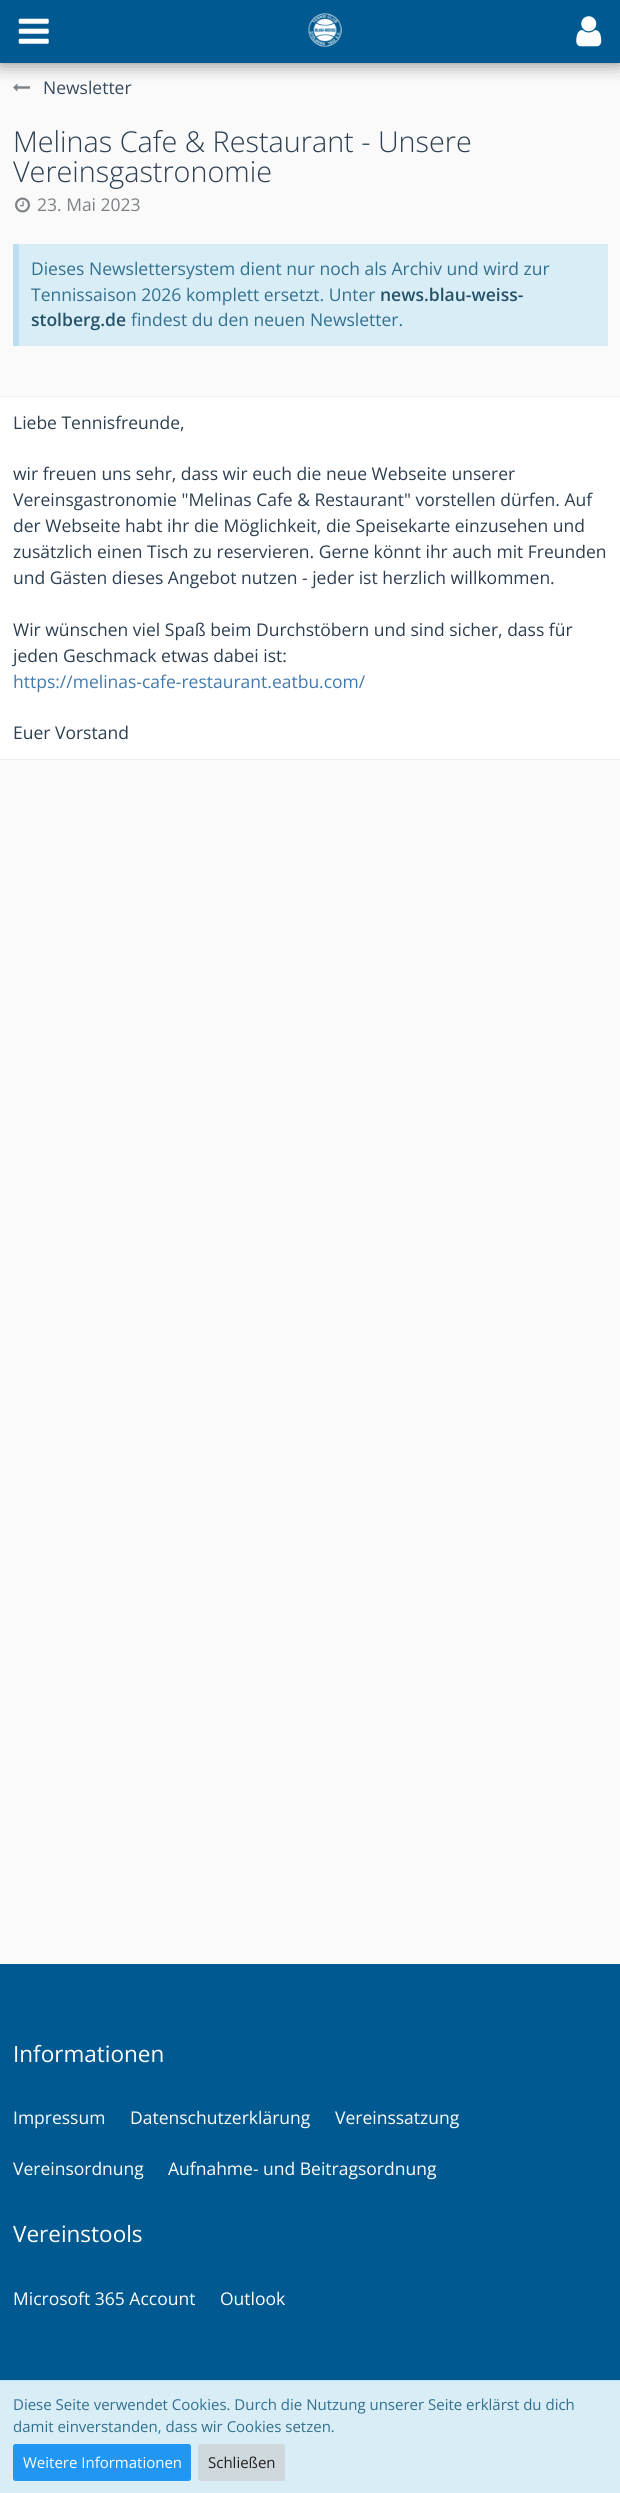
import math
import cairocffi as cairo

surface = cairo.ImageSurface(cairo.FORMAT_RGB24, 620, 2493)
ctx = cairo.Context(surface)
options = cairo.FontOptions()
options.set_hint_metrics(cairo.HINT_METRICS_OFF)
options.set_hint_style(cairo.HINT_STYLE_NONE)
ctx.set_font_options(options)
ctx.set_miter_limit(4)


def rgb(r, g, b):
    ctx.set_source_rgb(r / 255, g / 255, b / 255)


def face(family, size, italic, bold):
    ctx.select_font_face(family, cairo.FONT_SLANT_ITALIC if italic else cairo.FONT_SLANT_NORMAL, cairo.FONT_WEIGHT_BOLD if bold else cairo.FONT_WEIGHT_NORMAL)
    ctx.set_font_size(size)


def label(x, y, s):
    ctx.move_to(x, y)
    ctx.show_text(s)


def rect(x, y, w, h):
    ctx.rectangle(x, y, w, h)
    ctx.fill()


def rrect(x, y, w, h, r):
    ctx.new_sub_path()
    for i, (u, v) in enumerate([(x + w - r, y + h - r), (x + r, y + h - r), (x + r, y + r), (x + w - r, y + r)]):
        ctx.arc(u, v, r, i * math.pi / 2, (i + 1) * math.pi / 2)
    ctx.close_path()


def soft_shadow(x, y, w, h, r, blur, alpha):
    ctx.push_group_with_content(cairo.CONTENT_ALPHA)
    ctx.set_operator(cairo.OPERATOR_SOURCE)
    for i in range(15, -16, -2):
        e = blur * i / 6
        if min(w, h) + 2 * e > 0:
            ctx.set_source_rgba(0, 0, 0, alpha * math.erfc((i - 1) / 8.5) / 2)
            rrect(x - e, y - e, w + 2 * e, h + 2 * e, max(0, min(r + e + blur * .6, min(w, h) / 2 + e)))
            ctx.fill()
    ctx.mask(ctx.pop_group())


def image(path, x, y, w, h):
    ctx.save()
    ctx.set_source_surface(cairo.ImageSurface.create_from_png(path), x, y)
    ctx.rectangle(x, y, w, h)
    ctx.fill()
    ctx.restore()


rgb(250, 250, 250)
ctx.paint()
image('image3.png', 13, 83, 17, 9)
rgb(0, 0, 0)
soft_shadow(0, 0, 620, 63, 0, 9.5, 0.5)
rgb(0, 90, 145)
rect(0, 0, 620, 63)
image('image0.png', 18, 18, 31, 26)
image('image1.png', 308, 13, 34, 34)
image('image2.png', 576, 16, 26, 31)
face('Open Sans', 17.5, 0, 0)
rgb(52, 73, 94)
label(43, 94, 'Newsletter')
face('Open Sans Light', 28.75, 0, 0)
rgb(44, 62, 80)
label(13, 152, 'Melinas Cafe & Restaurant - Unsere')
label(13, 182, 'Vereinsgastronomie')
image('image4.png', 15, 197, 15, 16)
face('Open Sans', 17.5, 0, 0)
rgb(125, 130, 135)
label(37, 211, '23. Mai 2023')
rgb(217, 237, 247)
rect(19, 244, 589, 102)
rgb(188, 223, 241)
rect(13, 244, 6, 102)
rgb(49, 112, 143)
label(31, 275, 'Dieses Newslettersystem dient nur noch als Archiv und wird zur')
label(31, 301, 'Tennissaison 2026 komplett ersetzt. Unter')
face('Open Sans SemiBold', 17.5, 0, 0)
rgb(36, 82, 105)
label(380, 301, 'news.blau-weiss-')
label(31, 326, 'stolberg.de')
face('Open Sans', 17.5, 0, 0)
rgb(49, 112, 143)
label(131, 326, 'findest du den neuen Newsletter.')
rgb(255, 255, 255)
rect(0, 398, 620, 361)
rgb(236, 241, 247)
rect(0, 396, 620, 1)
rect(0, 759, 620, 1)
rgb(44, 62, 80)
label(13, 429, 'Liebe Tennisfreunde,')
label(13, 480, 'wir freuen uns sehr, dass wir euch die neue Webseite unserer')
label(13, 506, 'Vereinsgastronomie "Melinas Cafe & Restaurant" vorstellen dürfen. Auf')
label(13, 532, 'der Webseite habt ihr die Möglichkeit, die Speisekarte einzusehen und')
label(13, 558, 'zusätzlich einen Tisch zu reservieren. Gerne könnt ihr auch mit Freunden')
label(13, 584, 'und Gästen dieses Angebot nutzen - jeder ist herzlich willkommen.')
label(13, 636, 'Wir wünschen viel Spaß beim Durchstöbern und sind sicher, dass für')
label(13, 662, 'jeden Geschmack etwas dabei ist:')
rgb(65, 121, 173)
label(13, 688, 'https://melinas-cafe-restaurant.eatbu.com/')
rgb(44, 62, 80)
label(13, 739, 'Euer Vorstand')
rgb(0, 90, 145)
rect(0, 1964, 620, 416)
face('Open Sans', 22.5, 0, 0)
rgb(255, 255, 255)
label(13, 2062, 'Informationen')
face('Open Sans', 17.5, 0, 0)
label(13, 2124, 'Impressum')
label(130, 2124, 'Datenschutzerklärung')
label(335, 2124, 'Vereinssatzung')
label(13, 2175, 'Vereinsordnung')
label(168, 2175, 'Aufnahme- und Beitragsordnung')
face('Open Sans', 22.5, 0, 0)
label(13, 2242, 'Vereinstools')
face('Open Sans', 17.5, 0, 0)
label(13, 2305, 'Microsoft 365 Account')
label(220, 2305, 'Outlook')
rgb(217, 237, 247)
rect(0, 2381, 620, 112)
rgb(188, 223, 241)
rect(0, 2380, 620, 1)
face('Open Sans', 15, 0, 0)
rgb(49, 112, 143)
label(13, 2410, 'Diese Seite verwendet Cookies. Durch die Nutzung unserer Seite erklärst du dich')
label(13, 2432, 'damit einverstanden, dass wir Cookies setzen.')
rgb(33, 150, 243)
rrect(13, 2444, 178, 37, 2.5)
ctx.fill()
rgb(255, 255, 255)
label(23, 2468, 'Weitere Informationen')
rgb(207, 216, 220)
rrect(198, 2444, 87, 37, 2.5)
ctx.fill()
rgb(33, 33, 33)
label(208, 2468, 'Schließen')
surface.write_to_png('render.png')
